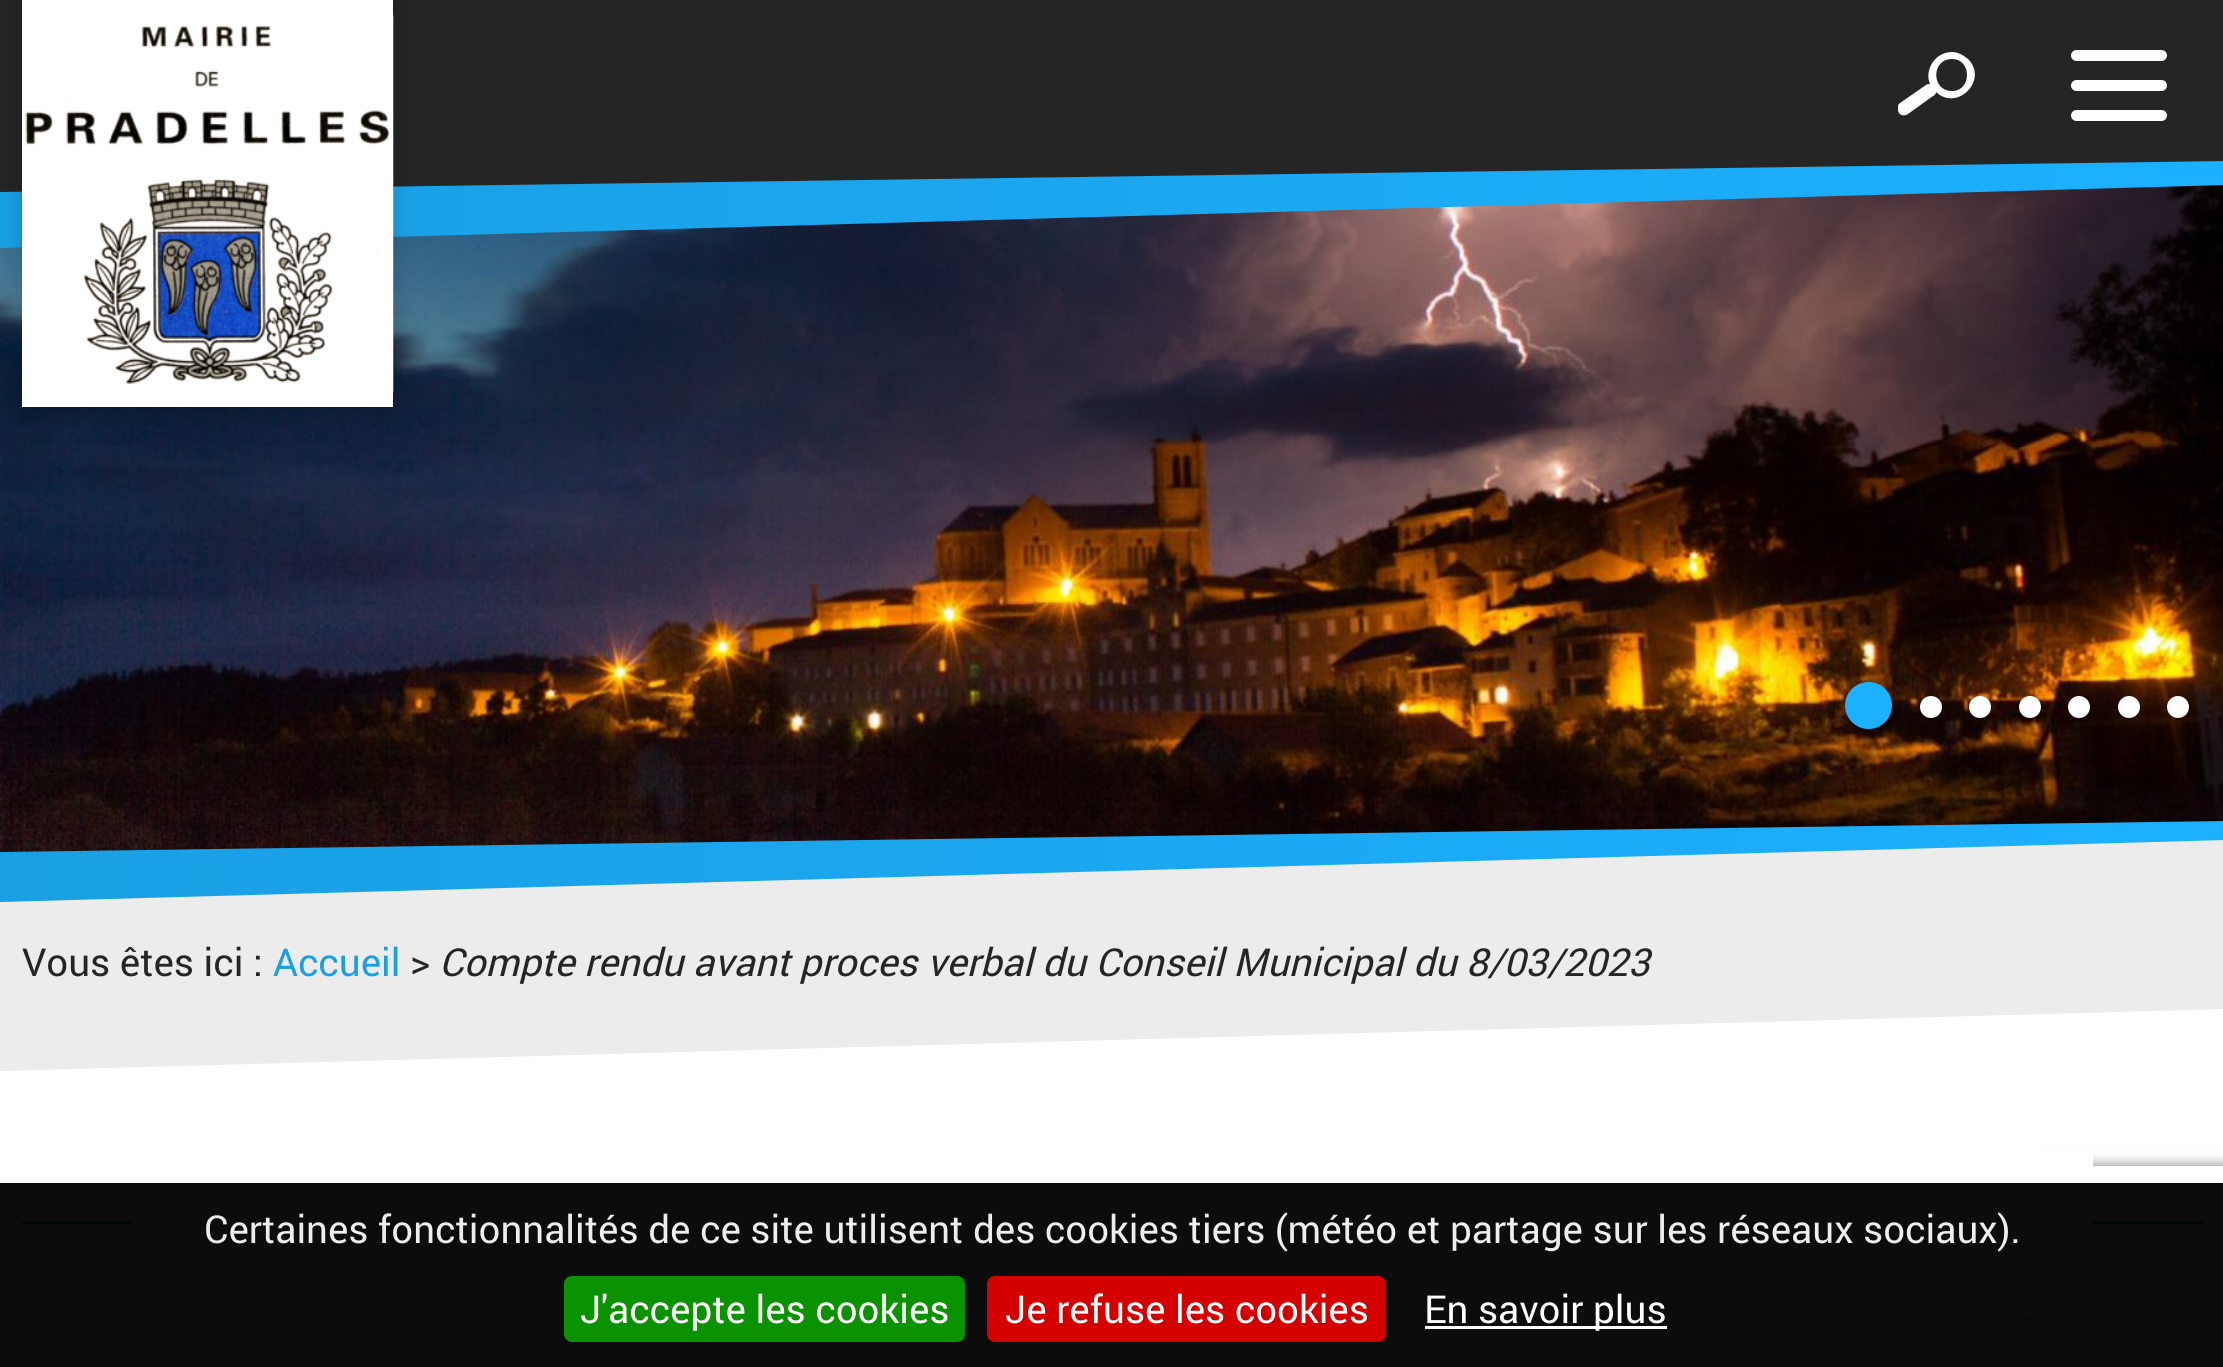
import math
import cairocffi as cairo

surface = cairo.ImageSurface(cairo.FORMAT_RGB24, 2223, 1367)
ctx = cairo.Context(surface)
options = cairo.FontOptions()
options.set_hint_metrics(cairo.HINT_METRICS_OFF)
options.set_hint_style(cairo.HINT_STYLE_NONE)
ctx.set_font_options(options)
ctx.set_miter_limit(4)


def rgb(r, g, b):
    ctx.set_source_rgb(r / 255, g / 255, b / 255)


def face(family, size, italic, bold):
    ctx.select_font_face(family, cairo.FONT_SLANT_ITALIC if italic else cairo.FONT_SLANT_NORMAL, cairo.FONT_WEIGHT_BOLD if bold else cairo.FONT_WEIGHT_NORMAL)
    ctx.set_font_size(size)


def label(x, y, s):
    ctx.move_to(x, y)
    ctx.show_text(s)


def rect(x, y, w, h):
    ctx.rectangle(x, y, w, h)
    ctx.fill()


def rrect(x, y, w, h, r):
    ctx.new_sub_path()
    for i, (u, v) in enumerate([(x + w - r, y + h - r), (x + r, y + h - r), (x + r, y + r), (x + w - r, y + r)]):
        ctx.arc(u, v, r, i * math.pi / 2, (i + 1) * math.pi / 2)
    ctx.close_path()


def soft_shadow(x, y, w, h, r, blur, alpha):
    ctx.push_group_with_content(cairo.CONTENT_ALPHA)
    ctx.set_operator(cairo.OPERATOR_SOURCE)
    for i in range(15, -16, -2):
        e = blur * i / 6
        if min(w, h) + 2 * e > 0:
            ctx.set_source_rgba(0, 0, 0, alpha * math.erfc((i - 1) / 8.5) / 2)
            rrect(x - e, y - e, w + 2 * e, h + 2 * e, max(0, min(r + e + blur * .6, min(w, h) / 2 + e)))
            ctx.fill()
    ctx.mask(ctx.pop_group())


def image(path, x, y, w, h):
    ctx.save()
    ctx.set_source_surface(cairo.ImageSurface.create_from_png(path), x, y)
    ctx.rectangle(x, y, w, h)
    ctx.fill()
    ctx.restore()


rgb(255, 255, 255)
ctx.paint()
image('image1.png', 0, 185, 2223, 667)
gradient = cairo.LinearGradient(0, -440, 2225, -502)
gradient.add_color_stop_rgba(0, 0.102, 0.624, 0.894, 1)
gradient.add_color_stop_rgba(1, 0.11, 0.69, 0.992, 1)
ctx.set_source(gradient)
ctx.new_path()
ctx.move_to(0, -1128)
ctx.line_to(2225, -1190)
ctx.line_to(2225, 185)
ctx.line_to(0, 248)
ctx.close_path()
ctx.fill()
rgb(37, 37, 37)
ctx.new_path()
ctx.move_to(0, -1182)
ctx.line_to(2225, -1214)
ctx.line_to(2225, 161)
ctx.line_to(0, 192)
ctx.close_path()
ctx.fill()
rgb(0, 0, 0)
soft_shadow(22, -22, 371, 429, 0, 11, 0.2)
rgb(255, 255, 255)
rect(22, 0, 371, 407)
image('image0.png', 25, 14, 369, 379)
rrect(2071, 50, 96, 11, 5.5)
ctx.fill()
rrect(2071, 80, 96, 11, 5.5)
ctx.fill()
rrect(2071, 110, 96, 11, 5.5)
ctx.fill()
ctx.save()
ctx.rectangle(1898, 52, 77, 64)
ctx.clip()
ctx.new_path()
ctx.move_to(1952, 52)
ctx.curve_to(1935, 52, 1924, 70, 1930, 84)
ctx.curve_to(1929, 84, 1927, 84, 1926, 85)
ctx.line_to(1900, 103)
ctx.curve_to(1897, 105, 1897, 110, 1899, 113)
ctx.curve_to(1901, 116, 1905, 116, 1908, 114)
ctx.line_to(1933, 96)
ctx.curve_to(1935, 95, 1936, 94, 1936, 92)
ctx.curve_to(1957, 112, 1989, 80, 1968, 59)
ctx.curve_to(1963, 55, 1958, 52, 1952, 52)
ctx.close_path()
ctx.move_to(1952, 91)
ctx.curve_to(1931, 91, 1931, 59, 1952, 59)
ctx.curve_to(1972, 59, 1972, 91, 1952, 91)
ctx.close_path()
ctx.fill()
ctx.restore()
rgb(28, 176, 253)
ctx.arc(1868.5, 705.5, 23.5, 0, 2 * math.pi)
ctx.fill()
rgb(255, 255, 255)
ctx.arc(1931, 707, 11, 0, 2 * math.pi)
ctx.fill()
ctx.arc(1980, 707, 11, 0, 2 * math.pi)
ctx.fill()
ctx.arc(2030, 707, 11, 0, 2 * math.pi)
ctx.fill()
ctx.arc(2079, 707, 11, 0, 2 * math.pi)
ctx.fill()
ctx.arc(2129, 707, 11, 0, 2 * math.pi)
ctx.fill()
ctx.arc(2178, 707, 11, 0, 2 * math.pi)
ctx.fill()
gradient = cairo.LinearGradient(0, 997, 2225, 966)
gradient.add_color_stop_rgba(0, 0.102, 0.624, 0.894, 1)
gradient.add_color_stop_rgba(1, 0.11, 0.69, 0.992, 1)
ctx.set_source(gradient)
ctx.new_path()
ctx.move_to(0, 852)
ctx.line_to(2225, 821)
ctx.line_to(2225, 1110)
ctx.line_to(0, 1141)
ctx.close_path()
ctx.fill()
rgb(236, 236, 236)
ctx.new_path()
ctx.move_to(0, 902)
ctx.line_to(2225, 840)
ctx.line_to(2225, 1126)
ctx.line_to(0, 1188)
ctx.close_path()
ctx.fill()
face('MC', 38.5, 0, 0)
rgb(37, 37, 37)
label(22, 976, 'Vous êtes ici :')
rgb(26, 159, 228)
label(273, 976, 'Accueil')
rgb(37, 37, 37)
label(410, 976, '>')
face('MC', 38.5, 1, 0)
label(439, 976, 'Compte rendu avant proces verbal du Conseil Municipal du 8/03/2023')
rgb(255, 255, 255)
ctx.new_path()
ctx.move_to(0, 1071)
ctx.line_to(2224, 1009)
ctx.line_to(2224, 1298)
ctx.line_to(0, 1360)
ctx.close_path()
ctx.fill()
ctx.save()
ctx.set_fill_rule(cairo.FILL_RULE_EVEN_ODD)
ctx.new_path()
ctx.move_to(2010, 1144)
ctx.line_to(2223, 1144)
ctx.line_to(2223, 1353)
ctx.line_to(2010, 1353)
ctx.close_path()
ctx.move_to(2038, 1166)
ctx.line_to(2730, 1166)
ctx.curve_to(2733.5, 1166, 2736, 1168.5, 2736, 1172)
ctx.line_to(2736, 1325)
ctx.curve_to(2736, 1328.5, 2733.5, 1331, 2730, 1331)
ctx.line_to(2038, 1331)
ctx.curve_to(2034.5, 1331, 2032, 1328.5, 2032, 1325)
ctx.line_to(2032, 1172)
ctx.curve_to(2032, 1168.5, 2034.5, 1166, 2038, 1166)
ctx.close_path()
ctx.clip()
rgb(128, 128, 128)
soft_shadow(2032, 1166, 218, 165, 6, 7, 1)
ctx.restore()
rgb(28, 176, 253)
rect(22, 1221, 2181, 3)
rgb(255, 255, 255)
rect(132, 1152, 1961, 165)
ctx.set_source_rgba(0, 0, 0, 0.95)
rect(0, 1183, 2223, 184)
face('MC', 38.5, 0, 0)
rgb(238, 238, 238)
label(204, 1243, 'Certaines fonctionnalités de ce site utilisent des cookies tiers (météo et partage sur les réseaux sociaux).')
rgb(11, 146, 0)
rrect(564, 1276, 401, 66, 8)
ctx.fill()
rgb(255, 255, 255)
label(580, 1323, 'J\'accepte les cookies')
rgb(212, 0, 0)
rrect(987, 1276, 399, 66, 8)
ctx.fill()
rgb(255, 255, 255)
label(1005, 1323, 'Je refuse les cookies')
rect(1425, 1326, 242, 3)
label(1424, 1323, 'En savoir plus')
surface.write_to_png('render.png')
